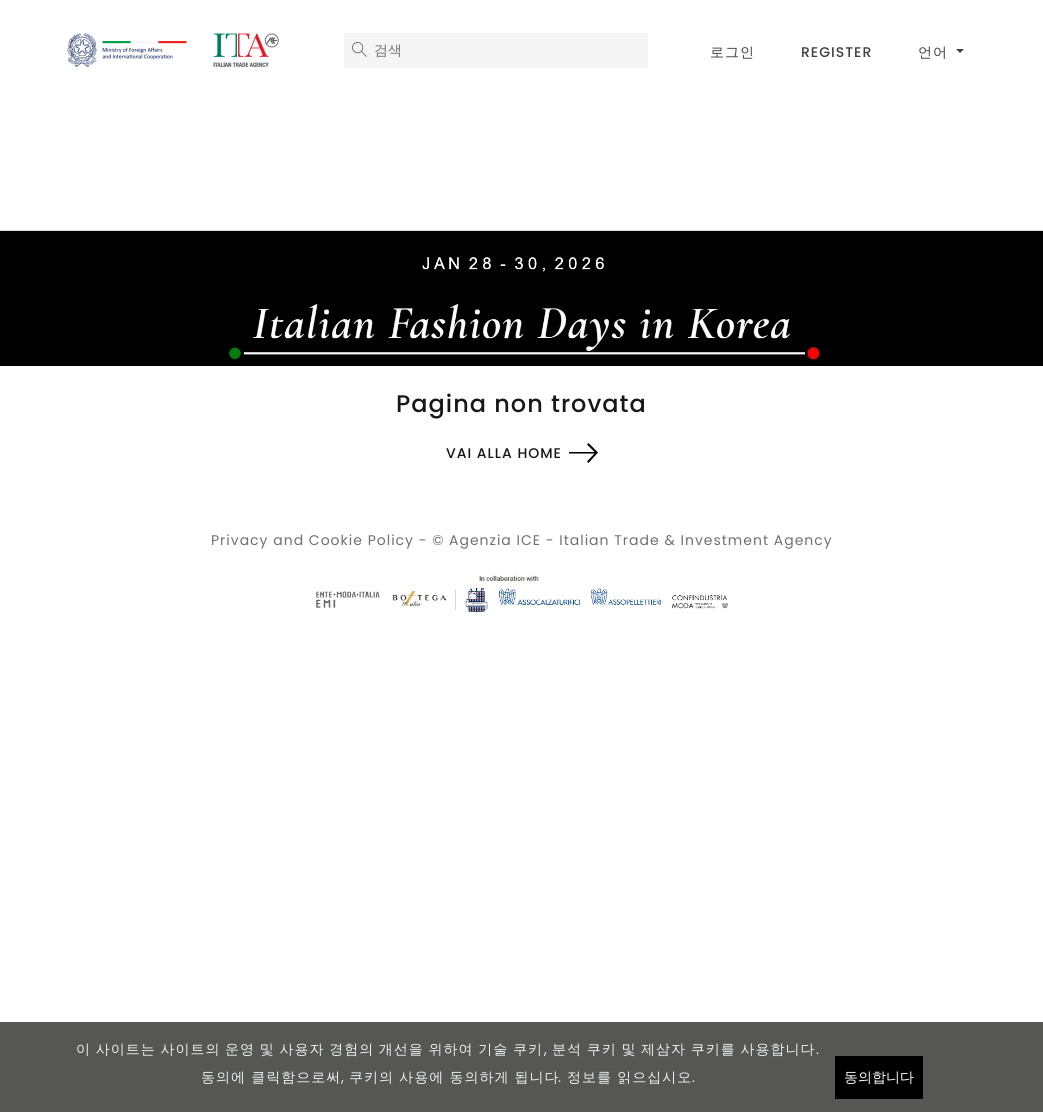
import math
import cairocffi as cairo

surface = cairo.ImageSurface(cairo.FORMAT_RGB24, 1043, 1112)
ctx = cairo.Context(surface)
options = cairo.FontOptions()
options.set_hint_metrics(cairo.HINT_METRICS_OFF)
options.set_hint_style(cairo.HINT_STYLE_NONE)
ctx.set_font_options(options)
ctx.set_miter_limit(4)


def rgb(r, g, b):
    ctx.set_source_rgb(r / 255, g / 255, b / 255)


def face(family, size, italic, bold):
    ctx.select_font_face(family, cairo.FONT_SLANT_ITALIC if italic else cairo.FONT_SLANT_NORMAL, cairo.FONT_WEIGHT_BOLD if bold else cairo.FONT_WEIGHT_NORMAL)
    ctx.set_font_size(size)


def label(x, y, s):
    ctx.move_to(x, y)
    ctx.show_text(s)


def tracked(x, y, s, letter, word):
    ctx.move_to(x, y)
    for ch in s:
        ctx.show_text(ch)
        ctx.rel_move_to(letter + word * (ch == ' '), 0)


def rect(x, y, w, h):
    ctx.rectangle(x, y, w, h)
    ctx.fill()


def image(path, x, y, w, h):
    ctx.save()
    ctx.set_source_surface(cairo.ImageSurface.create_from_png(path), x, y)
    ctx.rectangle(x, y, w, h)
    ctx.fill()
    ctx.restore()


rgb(255, 255, 255)
ctx.paint()
image('image0.png', 67, 33, 212, 34)
rgb(245, 245, 245)
rect(344, 33, 304, 35)
image('image1.png', 352, 42, 15, 15)
face('WenQuanYi Zen Hei Medium', 14, 0, 0)
rgb(112, 112, 112)
label(374, 55, '검색')
rgb(63, 63, 63)
tracked(710, 57, '로그인', 1, 0)
face('Poppins Medium', 14, 0, 0)
tracked(801, 57, 'REGISTER', 1, 0)
face('WenQuanYi Zen Hei Medium', 14, 0, 0)
tracked(918, 57, '언어', 1, 0)
ctx.new_path()
ctx.move_to(956, 49)
ctx.line_to(964, 49)
ctx.line_to(960, 53)
ctx.close_path()
ctx.fill()
image('image2.png', 0, 230, 1043, 136)
face('Poppins Medium', 24, 0, 0)
rgb(23, 23, 23)
tracked(396, 412, 'Pagina non trovata', 1, 0)
face('Poppins Medium', 14, 0, 0)
tracked(446, 458, 'VAI ALLA HOME', 1, 0)
rgb(0, 0, 0)
ctx.new_path()
ctx.move_to(588.5, 443)
ctx.line_to(587, 444.5)
ctx.line_to(594.5, 452)
ctx.line_to(569, 452)
ctx.line_to(569, 453.5)
ctx.line_to(594.5, 453.5)
ctx.line_to(587, 461.5)
ctx.line_to(588.5, 463)
ctx.line_to(598, 452.5)
ctx.close_path()
ctx.fill()
face('Poppins', 14, 0, 0)
rgb(112, 112, 112)
tracked(211, 545, 'Privacy and Cookie Policy - © Agenzia ICE - Italian Trade & Investment Agency', 1, 0)
image('image3.png', 316, 575, 412, 38)
rgb(86, 86, 84)
rect(0, 1022, 1043, 90)
face('WenQuanYi Zen Hei Medium', 14, 0, 0)
rgb(236, 240, 241)
tracked(76, 1054, '이 사이트는 사이트의 운영 및 사용자 경험의 개선을 위하여 기술 쿠키', 1, -0.5)
face('Poppins', 14, 0, 0)
tracked(544, 1054, ',', 1, 0)
face('WenQuanYi Zen Hei Medium', 14, 0, 0)
tracked(552, 1054, '분석 쿠키 및 제삼자 쿠키를 사용합니다', 1, -0.5)
face('Poppins', 14, 0, 0)
tracked(816, 1054, '.', 1, 0)
face('WenQuanYi Zen Hei Medium', 14, 0, 0)
tracked(201, 1082, '동의에 클릭함으로써', 1, 0)
face('Poppins', 14, 0, 0)
tracked(341, 1082, ',', 1, 0)
face('WenQuanYi Zen Hei Medium', 14, 0, 0)
tracked(349, 1082, '쿠키의 사용에 동의하게 됩니다', 1, 0)
face('Poppins', 14, 0, 0)
tracked(558, 1082, '.', 1, 0)
face('WenQuanYi Zen Hei Medium', 14, 0, 0)
tracked(567, 1082, '정보를 읽으십시오', 1, 0)
face('Poppins', 14, 0, 0)
tracked(692, 1082, '.', 1, 0)
rgb(0, 0, 0)
rect(835, 1056, 88, 43)
face('WenQuanYi Zen Hei Medium', 14, 0, 0)
rgb(255, 255, 255)
label(844, 1082, '동의합니다')
surface.write_to_png('render.png')
